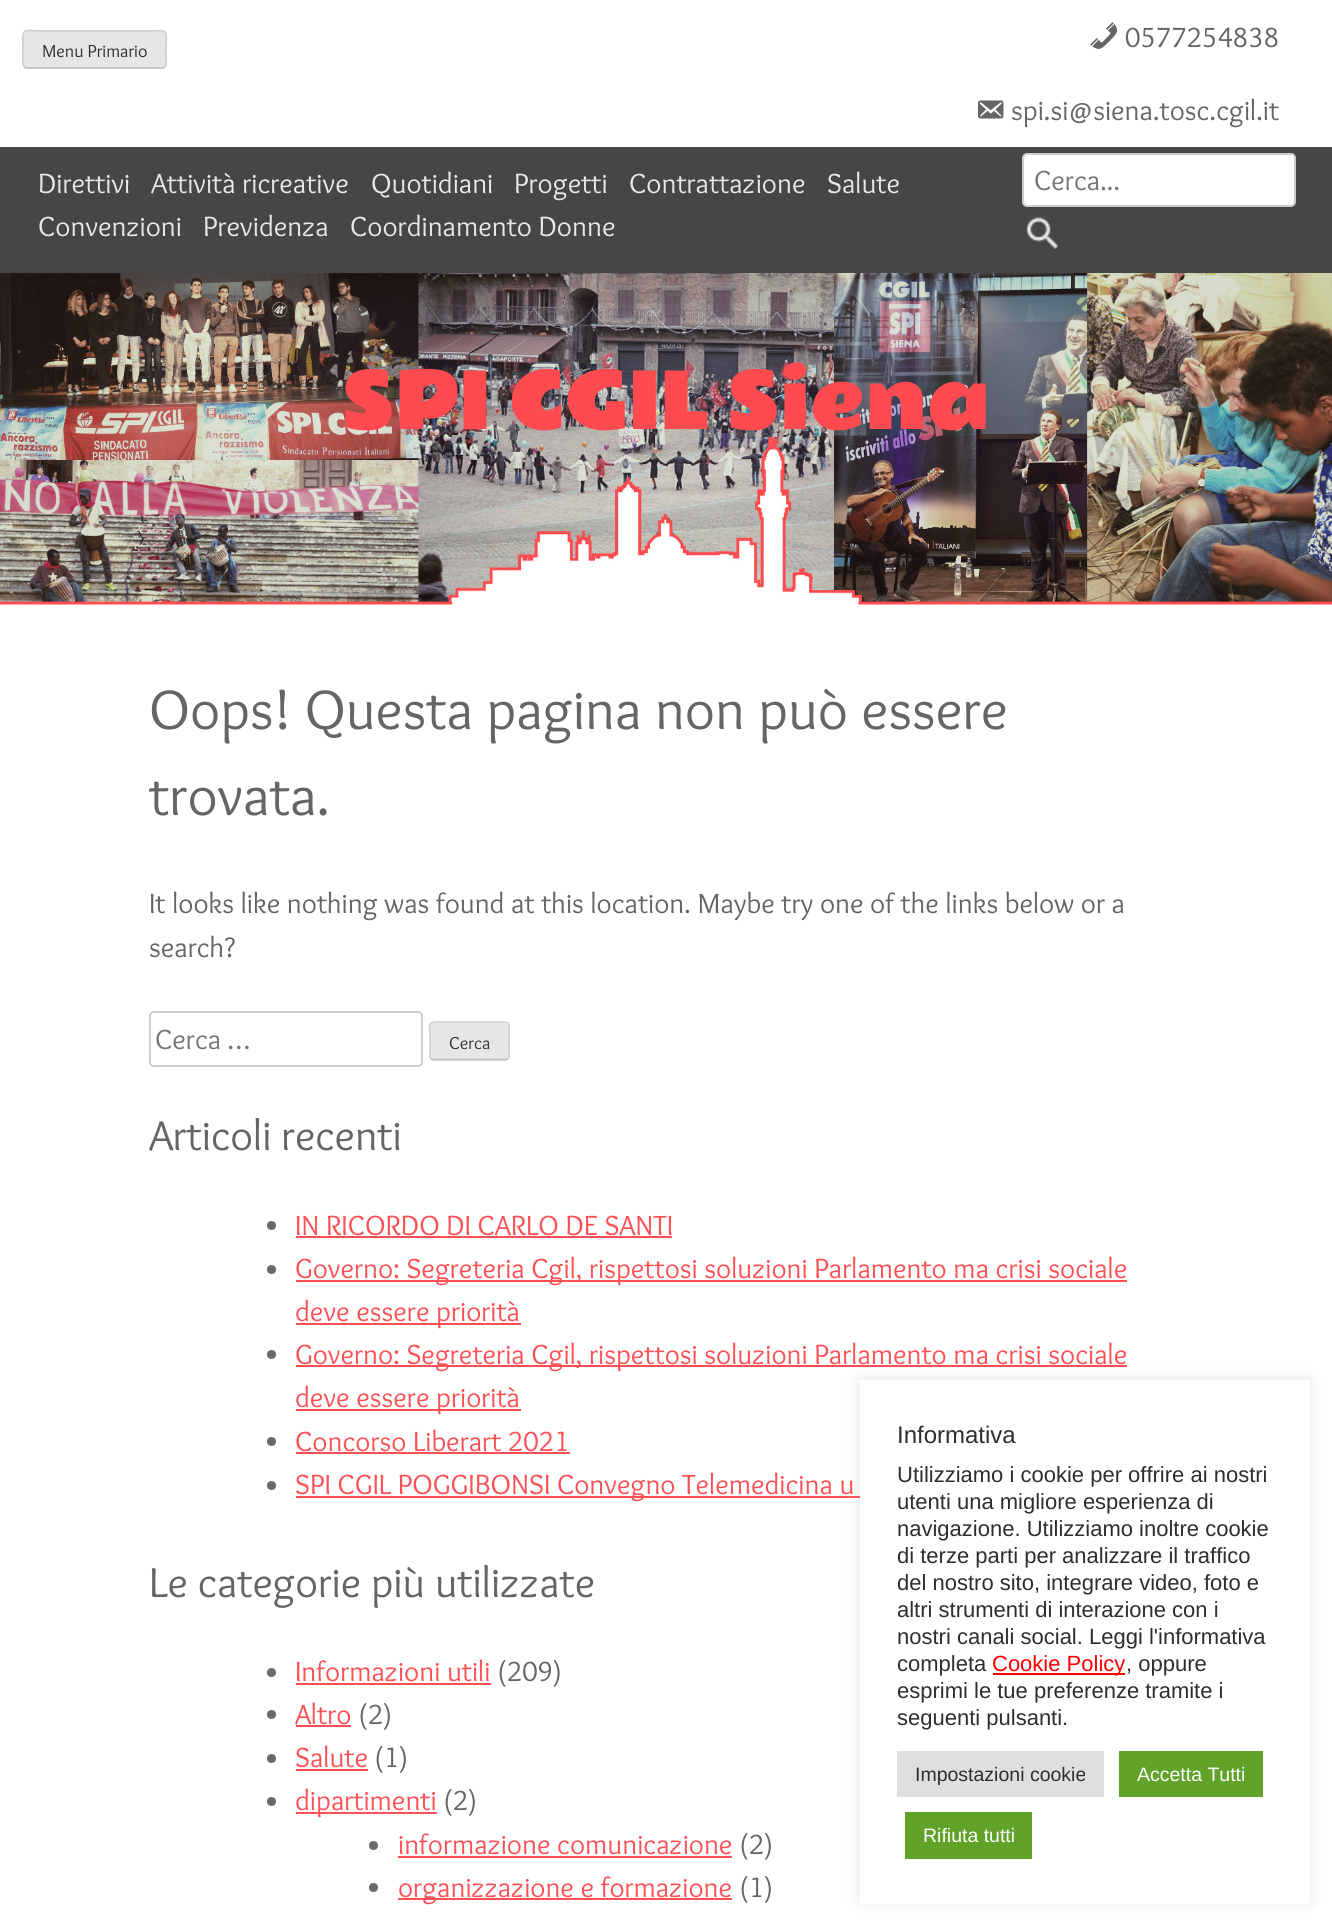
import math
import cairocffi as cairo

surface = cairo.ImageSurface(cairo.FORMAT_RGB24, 1332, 1925)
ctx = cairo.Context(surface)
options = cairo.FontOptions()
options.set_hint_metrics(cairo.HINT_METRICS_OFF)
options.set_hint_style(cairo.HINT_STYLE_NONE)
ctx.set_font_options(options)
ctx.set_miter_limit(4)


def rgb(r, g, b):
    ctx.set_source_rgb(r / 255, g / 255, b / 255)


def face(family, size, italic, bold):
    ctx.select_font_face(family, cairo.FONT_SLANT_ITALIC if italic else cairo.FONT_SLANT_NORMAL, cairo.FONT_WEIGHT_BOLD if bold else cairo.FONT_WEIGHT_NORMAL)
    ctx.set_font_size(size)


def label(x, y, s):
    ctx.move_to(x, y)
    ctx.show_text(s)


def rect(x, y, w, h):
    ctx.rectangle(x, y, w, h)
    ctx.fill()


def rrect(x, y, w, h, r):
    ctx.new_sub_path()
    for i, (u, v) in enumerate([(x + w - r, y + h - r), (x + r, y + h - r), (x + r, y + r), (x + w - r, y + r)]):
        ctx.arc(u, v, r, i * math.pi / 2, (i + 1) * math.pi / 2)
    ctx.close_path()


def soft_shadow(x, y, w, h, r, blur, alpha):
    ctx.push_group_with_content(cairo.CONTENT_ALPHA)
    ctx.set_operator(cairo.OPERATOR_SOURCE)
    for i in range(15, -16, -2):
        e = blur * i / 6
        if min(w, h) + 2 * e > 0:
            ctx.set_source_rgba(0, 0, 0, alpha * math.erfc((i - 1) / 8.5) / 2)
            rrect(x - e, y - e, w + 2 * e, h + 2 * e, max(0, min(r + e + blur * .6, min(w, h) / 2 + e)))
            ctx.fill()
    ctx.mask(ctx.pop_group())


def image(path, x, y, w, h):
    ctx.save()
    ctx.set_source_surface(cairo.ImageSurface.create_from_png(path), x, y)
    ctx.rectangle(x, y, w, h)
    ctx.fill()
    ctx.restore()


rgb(255, 255, 255)
ctx.paint()
rgb(230, 230, 230)
rrect(23, 30, 144, 39, 5)
ctx.fill()
ctx.new_path()
ctx.move_to(164.5, 67)
ctx.curve_to(164, 68, 163, 68, 162, 68)
ctx.line_to(27, 68)
ctx.curve_to(26, 68, 25, 68, 24.5, 67)
rgb(187, 187, 187)
ctx.set_line_width(1.5)
ctx.stroke()
ctx.new_path()
ctx.move_to(24.5, 67)
ctx.curve_to(22, 64.5, 23, 57, 23, 54.5)
ctx.curve_to(23, 25, 18, 31, 49.5, 31)
ctx.line_to(139.5, 31)
ctx.curve_to(171, 31, 166, 25, 166, 54.5)
ctx.curve_to(166, 57, 167, 64.5, 164.5, 67)
rgb(204, 204, 204)
ctx.stroke()
face('Overlock', 18, 0, 0)
rgb(46, 46, 46)
label(42, 57, 'Menu Primario')
image('image0.png', 1090, 22, 28, 27)
face('Overlock', 28.8, 0, 0)
rgb(101, 101, 101)
label(1125, 47, '0577254838')
image('image1.png', 978, 100, 26, 19)
label(1011, 120, 'spi.si@siena.tosc.cgil.it')
rgb(70, 70, 70)
rect(0, 147, 1332, 126)
rgb(232, 232, 232)
label(38, 193, 'Direttivi')
label(151, 193, 'Attività ricreative')
label(371, 193, 'Quotidiani')
label(514, 193, 'Progetti')
label(629, 193, 'Contrattazione')
label(827, 193, 'Salute')
label(38, 236, 'Convenzioni')
label(203, 236, 'Previdenza')
label(350, 236, 'Coordinamento Donne')
rgb(255, 255, 255)
rrect(1023, 154, 272, 52, 4)
ctx.fill_preserve()
rgb(204, 204, 204)
ctx.set_line_width(2)
ctx.stroke()
rgb(117, 117, 117)
label(1034, 190, 'Cerca...')
image('image2.png', 1026, 217, 32, 32)
image('image3.png', 0, 273, 1332, 332)
face('Rammetto One', 75, 0, 0)
rgb(255, 75, 79)
label(342, 429, 'SPI CGIL Siena')
face('Overlock', 57.6, 0, 0)
rgb(101, 101, 101)
label(149, 729, 'Oops! Questa pagina non può essere')
label(149, 815, 'trovata.')
face('Overlock', 28.8, 0, 0)
label(149, 913, 'It looks like nothing was found at this location. Maybe try one of the links below or a')
label(149, 957, 'search?')
rrect(150, 1012, 272, 54, 4)
rgb(206, 206, 206)
ctx.stroke()
rgb(117, 117, 117)
label(155, 1049, 'Cerca …')
rgb(231, 231, 231)
rrect(429, 1022, 81, 39, 5)
ctx.fill()
ctx.new_path()
ctx.move_to(508, 1058.5)
ctx.line_to(506, 1059.5)
ctx.line_to(433, 1059.5)
ctx.line_to(431, 1058.5)
rgb(189, 189, 189)
ctx.set_line_width(1.5)
ctx.stroke()
ctx.new_path()
ctx.move_to(431, 1058.5)
ctx.curve_to(429, 1057, 430, 1053, 430, 1051)
ctx.line_to(430, 1041)
ctx.curve_to(430, 1020.5, 426, 1022, 445.5, 1022)
ctx.line_to(493.5, 1022)
ctx.curve_to(513, 1022, 509, 1020.5, 509, 1041)
ctx.line_to(509, 1051)
ctx.curve_to(509, 1053, 510, 1057, 508, 1058.5)
rgb(206, 206, 206)
ctx.stroke()
face('Overlock', 18, 0, 0)
rgb(53, 53, 53)
label(449, 1049, 'Cerca')
face('Overlock', 43.25, 0, 0)
rgb(101, 101, 101)
label(149, 1150, 'Articoli recenti')
rgb(106, 106, 106)
ctx.new_path()
ctx.arc(271.5, 1225.5, 4.5, 0, 2 * math.pi)
ctx.fill()
face('Overlock', 28.8, 0, 0)
rgb(255, 81, 85)
label(295, 1235, 'IN RICORDO DI CARLO DE SANTI')
rect(296, 1236, 376, 2)
rgb(106, 106, 106)
ctx.new_path()
ctx.arc(271.5, 1269.5, 4.5, 0, 2 * math.pi)
ctx.fill()
rgb(255, 81, 85)
rect(296, 1280, 831, 2)
label(295, 1278, 'Governo: Segreteria Cgil, rispettosi soluzioni Parlamento ma crisi sociale')
rect(296, 1323, 225, 2)
label(295, 1321, 'deve essere priorità')
rgb(106, 106, 106)
ctx.new_path()
ctx.arc(271.5, 1354.5, 4.5, 0, 2 * math.pi)
ctx.fill()
rgb(255, 81, 85)
rect(296, 1365, 831, 2)
label(295, 1364, 'Governo: Segreteria Cgil, rispettosi soluzioni Parlamento ma crisi sociale')
rect(296, 1409, 225, 2)
label(295, 1407, 'deve essere priorità')
rgb(106, 106, 106)
ctx.new_path()
ctx.arc(271.5, 1441.5, 4.5, 0, 2 * math.pi)
ctx.fill()
rgb(255, 81, 85)
label(295, 1451, 'Concorso Liberart 2021')
rect(296, 1452, 274, 2)
rgb(106, 106, 106)
ctx.new_path()
ctx.arc(271.5, 1485.5, 4.5, 0, 2 * math.pi)
ctx.fill()
rgb(255, 81, 85)
rect(296, 1496, 564, 2)
label(295, 1494, 'SPI CGIL POGGIBONSI Convegno Telemedicina u')
face('Overlock', 43.25, 0, 0)
rgb(101, 101, 101)
label(149, 1597, 'Le categorie più utilizzate')
rgb(106, 106, 106)
ctx.new_path()
ctx.arc(271.5, 1672.5, 4.5, 0, 2 * math.pi)
ctx.fill()
face('Overlock', 28.8, 0, 0)
rgb(255, 81, 85)
label(295, 1681, 'Informazioni utili')
rect(296, 1683, 195, 2)
rgb(101, 101, 101)
label(497, 1681, '(209)')
rgb(106, 106, 106)
ctx.new_path()
ctx.arc(271.5, 1714.5, 4.5, 0, 2 * math.pi)
ctx.fill()
rgb(255, 81, 85)
label(295, 1724, 'Altro')
rect(296, 1725, 55, 2)
rgb(101, 101, 101)
label(358, 1724, '(2)')
rgb(106, 106, 106)
ctx.new_path()
ctx.arc(271.5, 1758.5, 4.5, 0, 2 * math.pi)
ctx.fill()
rgb(255, 81, 85)
label(295, 1767, 'Salute')
rect(296, 1769, 72, 2)
rgb(101, 101, 101)
label(374, 1767, '(1)')
rgb(106, 106, 106)
ctx.new_path()
ctx.arc(271.5, 1801.5, 4.5, 0, 2 * math.pi)
ctx.fill()
rgb(255, 81, 85)
rect(296, 1812, 141, 2)
label(295, 1810, 'dipartimenti')
rgb(101, 101, 101)
label(443, 1810, '(2)')
rgb(106, 106, 106)
ctx.new_path()
ctx.arc(373.5, 1845.5, 4.5, 0, 2 * math.pi)
ctx.fill()
rgb(255, 81, 85)
label(398, 1854, 'informazione comunicazione')
rect(398, 1856, 334, 2)
rgb(101, 101, 101)
label(739, 1854, '(2)')
rgb(106, 106, 106)
ctx.new_path()
ctx.arc(373.5, 1887.5, 4.5, 0, 2 * math.pi)
ctx.fill()
rgb(255, 81, 85)
rect(398, 1898, 334, 2)
label(398, 1897, 'organizzazione e formazione')
rgb(101, 101, 101)
label(739, 1897, '(1)')
rgb(172, 171, 171)
soft_shadow(860, 1379, 450, 523, 0, 7.5, 0.3)
rgb(255, 255, 255)
rect(860, 1380, 450, 524)
face('Liberation Sans', 24, 0, 0)
rgb(46, 46, 46)
label(897, 1443, 'Informativa')
face('Liberation Sans', 22, 0, 0)
label(897, 1482, 'Utilizziamo i cookie per offrire ai nostri')
label(897, 1509, 'utenti una migliore esperienza di')
label(897, 1536, 'navigazione. Utilizziamo inoltre cookie')
label(897, 1563, 'di terze parti per analizzare il traffico')
label(897, 1590, 'del nostro sito, integrare video, foto e')
label(897, 1617, 'altri strumenti di interazione con i')
label(897, 1644, 'nostri canali social. Leggi l\'informativa')
label(897, 1671, 'completa')
rgb(255, 0, 0)
rect(993, 1673, 132, 2)
label(992, 1671, 'Cookie Policy')
rgb(46, 46, 46)
label(1126, 1671, ', oppure')
label(897, 1698, 'esprimi le tue preferenze tramite i')
label(897, 1725, 'seguenti pulsanti.')
rgb(222, 223, 224)
rect(897, 1751, 207, 46)
face('Liberation Sans', 19.5, 0, 0)
rgb(46, 46, 46)
label(915, 1781, 'Impostazioni cookie')
rgb(97, 162, 41)
rect(1119, 1751, 144, 46)
rgb(255, 255, 255)
label(1137, 1781, 'Accetta Tutti')
rgb(97, 162, 41)
rect(905, 1812, 127, 47)
rgb(255, 255, 255)
label(923, 1842, 'Rifiuta tutti')
surface.write_to_png('render.png')
